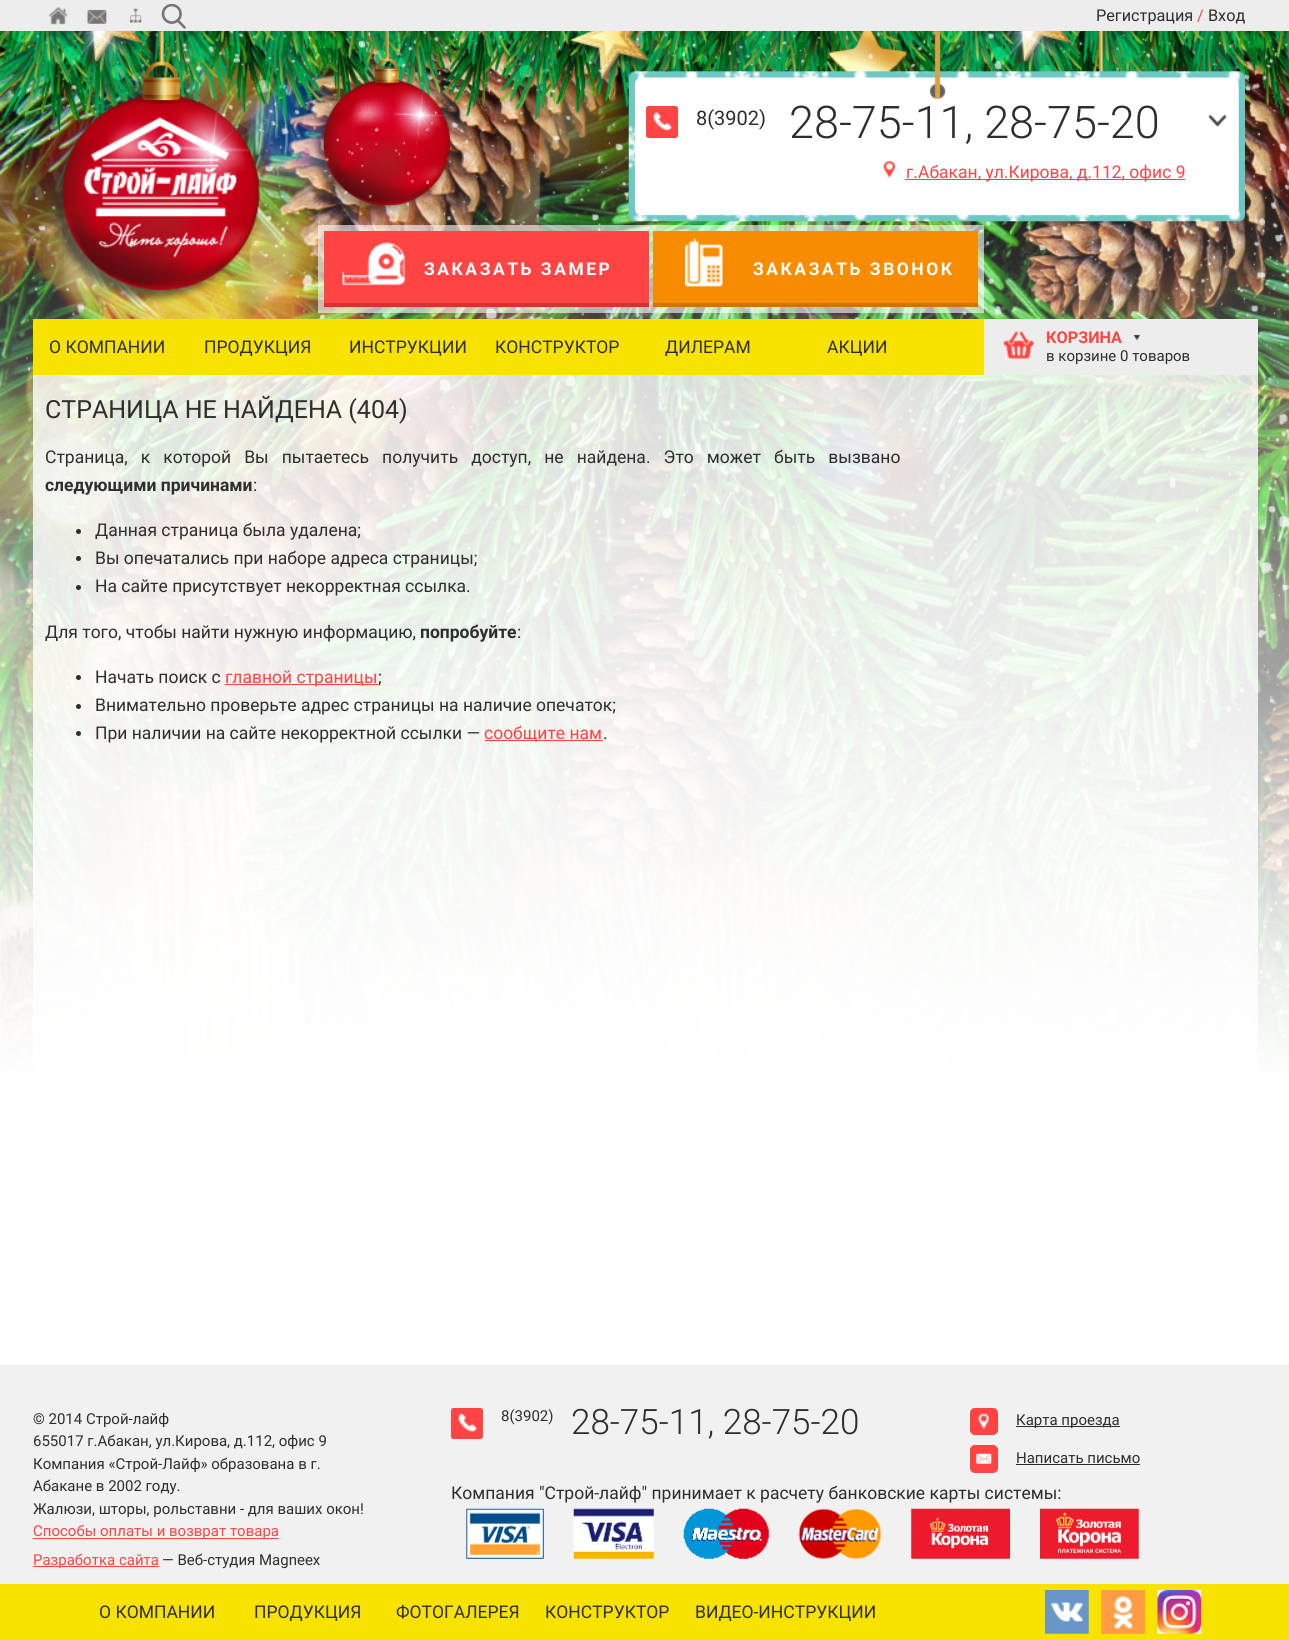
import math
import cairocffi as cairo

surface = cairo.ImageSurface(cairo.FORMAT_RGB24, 1289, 1640)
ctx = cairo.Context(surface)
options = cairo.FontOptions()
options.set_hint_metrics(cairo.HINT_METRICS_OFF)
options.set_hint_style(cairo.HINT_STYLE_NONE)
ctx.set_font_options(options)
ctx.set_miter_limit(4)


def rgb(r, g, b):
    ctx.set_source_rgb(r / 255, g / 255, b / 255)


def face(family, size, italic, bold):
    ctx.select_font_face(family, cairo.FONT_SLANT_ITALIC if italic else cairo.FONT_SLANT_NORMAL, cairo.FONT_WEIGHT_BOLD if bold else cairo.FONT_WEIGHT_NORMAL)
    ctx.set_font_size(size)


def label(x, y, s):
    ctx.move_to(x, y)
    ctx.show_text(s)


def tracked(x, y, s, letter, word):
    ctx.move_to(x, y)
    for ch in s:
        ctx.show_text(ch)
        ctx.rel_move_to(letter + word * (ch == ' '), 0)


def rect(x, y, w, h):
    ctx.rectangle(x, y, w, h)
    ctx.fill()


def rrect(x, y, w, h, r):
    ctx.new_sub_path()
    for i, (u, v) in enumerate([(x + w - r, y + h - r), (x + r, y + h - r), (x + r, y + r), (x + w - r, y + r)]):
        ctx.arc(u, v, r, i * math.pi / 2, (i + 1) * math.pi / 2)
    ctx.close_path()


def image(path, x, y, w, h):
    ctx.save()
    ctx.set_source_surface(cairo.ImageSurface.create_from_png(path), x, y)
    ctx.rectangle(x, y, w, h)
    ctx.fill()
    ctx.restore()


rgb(255, 255, 255)
ctx.paint()
image('image0.png', 0, 31, 1289, 1041)
rgb(237, 237, 237)
rect(0, 0, 1289, 31)
image('image1.png', 48, 7, 20, 18)
image('image2.png', 87, 9, 20, 15)
image('image3.png', 129, 8, 13, 15)
image('image4.png', 161, 4, 25, 25)
face('Roboto', 16.25, 0, 0)
rgb(46, 46, 46)
label(1096, 21, 'Регистрация')
rgb(255, 68, 67)
label(1197, 21, '/')
rgb(46, 46, 46)
label(1208, 21, 'Вход')
image('image5.png', 49, 31, 225, 274)
image('image6.png', 628, 31, 617, 191)
rgb(255, 68, 67)
rrect(646, 106, 32, 32, 2.5)
ctx.fill()
image('image7.png', 653, 112, 19, 19)
face('Roboto', 20, 0, 0)
rgb(46, 46, 46)
label(696, 125, '8(3902)')
face('Roboto Light', 45, 0, 0)
label(789, 138, '28-75-11, 28-75-20')
image('image8.png', 1208, 114, 19, 13)
image('image9.png', 883, 161, 13, 17)
rgb(255, 68, 67)
rect(905, 179, 280, 1)
face('Roboto', 17.5, 0, 0)
label(906, 178, 'г.Абакан, ул.Кирова, д.112, офис 9')
ctx.set_source_rgba(1, 1, 1, 0.6)
rect(318, 225, 666, 88)
rgb(255, 68, 67)
rect(324, 231, 325, 72)
rgb(218, 49, 48)
rect(324, 303, 325, 4)
image('image10.png', 342, 242, 63, 44)
face('Roboto', 17.5, 0, 1)
rgb(255, 255, 255)
tracked(424, 275, 'ЗАКАЗАТЬ ЗАМЕР', 2.5, 0)
rgb(248, 140, 0)
rect(653, 231, 325, 72)
rgb(206, 116, 0)
rect(653, 303, 325, 4)
image('image11.png', 684, 238, 39, 49)
rgb(255, 255, 255)
tracked(753, 275, 'ЗАКАЗАТЬ ЗВОНОК', 2.5, 0)
rgb(248, 227, 0)
rect(33, 319, 951, 56)
face('Roboto', 17.5, 0, 0)
rgb(46, 46, 46)
label(49, 353, 'О КОМПАНИИ')
label(204, 353, 'ПРОДУКЦИЯ')
label(349, 353, 'ИНСТРУКЦИИ')
label(495, 353, 'КОНСТРУКТОР')
label(665, 353, 'ДИЛЕРАМ')
label(827, 353, 'АКЦИИ')
rgb(237, 237, 237)
rect(984, 319, 274, 56)
image('image12.png', 1003, 331, 31, 28)
face('Roboto', 16.25, 0, 1)
rgb(255, 68, 67)
label(1046, 343, 'КОРЗИНА')
image('image13.png', 1133, 334, 8, 7)
face('Roboto', 15, 0, 0)
rgb(46, 46, 46)
label(1046, 361, 'в корзине 0 товаров')
ctx.set_source_rgba(1, 1, 1, 0.8)
rect(33, 375, 1225, 697)
face('Roboto', 25, 0, 0)
rgb(46, 46, 46)
label(45, 418, 'СТРАНИЦА НЕ НАЙДЕНА (404)')
face('Roboto', 17.5, 0, 0)
tracked(45, 463, 'Страница, к которой Вы пытаетесь получить доступ, не найдена. Это может быть вызвано', 0, 8.75)
face('Roboto', 17.5, 0, 1)
label(45, 491, 'следующими причинами')
face('Roboto', 17.5, 0, 0)
label(253, 491, ':')
ctx.new_path()
ctx.arc(78.5, 531.5, 2.5, 0, 2 * math.pi)
ctx.fill()
label(95, 536, 'Данная страница была удалена;')
ctx.new_path()
ctx.arc(78.5, 558.5, 2.5, 0, 2 * math.pi)
ctx.fill()
label(95, 564, 'Вы опечатались при наборе адреса страницы;')
ctx.new_path()
ctx.arc(78.5, 587.5, 2.5, 0, 2 * math.pi)
ctx.fill()
label(95, 592, 'На сайте присутствует некорректная ссылка.')
label(45, 638, 'Для того, чтобы найти нужную информацию,')
face('Roboto', 17.5, 0, 1)
label(420, 638, 'попробуйте')
face('Roboto', 17.5, 0, 0)
label(517, 638, ':')
ctx.new_path()
ctx.arc(78.5, 677.5, 2.5, 0, 2 * math.pi)
ctx.fill()
label(95, 683, 'Начать поиск с')
rgb(255, 68, 67)
rect(225, 684, 153, 1)
label(225, 683, 'главной страницы')
rgb(46, 46, 46)
label(378, 683, ';')
ctx.new_path()
ctx.arc(78.5, 706.5, 2.5, 0, 2 * math.pi)
ctx.fill()
label(95, 711, 'Внимательно проверьте адрес страницы на наличие опечаток;')
ctx.new_path()
ctx.arc(78.5, 733.5, 2.5, 0, 2 * math.pi)
ctx.fill()
label(95, 739, 'При наличии на сайте некорректной ссылки —')
rgb(255, 68, 67)
rect(485, 740, 118, 1)
label(484, 739, 'сообщите нам')
rgb(46, 46, 46)
label(603, 739, '.')
rgb(241, 241, 241)
rect(0, 1365, 1289, 219)
face('Roboto', 15, 0, 0)
rgb(46, 46, 46)
label(33, 1424, '© 2014 Строй-лайф')
label(33, 1446, '655017 г.Абакан, ул.Кирова, д.112, офис 9')
label(33, 1469, 'Компания «Строй-Лайф» образована в г.')
label(33, 1491, 'Абакане в 2002 году.')
label(33, 1514, 'Жалюзи, шторы, рольставни - для ваших окон!')
rgb(255, 68, 67)
rect(33, 1538, 246, 1)
label(33, 1536, 'Способы оплаты и возврат товара')
rect(33, 1566, 126, 1)
label(33, 1565, 'Разработка сайта')
rgb(46, 46, 46)
label(162, 1565, '— Веб-студия Magneex')
rgb(255, 68, 67)
rrect(451, 1408, 32, 31, 2.5)
ctx.fill()
image('image14.png', 458, 1413, 19, 19)
rgb(46, 46, 46)
label(501, 1421, '8(3902)')
face('Roboto Light', 35, 0, 0)
label(571, 1434, '28-75-11, 28-75-20')
rgb(255, 68, 67)
rrect(970, 1408, 28, 27, 5)
ctx.fill()
image('image15.png', 978, 1413, 11, 16)
rgb(46, 46, 46)
rect(1016, 1426, 104, 1)
face('Roboto', 15, 0, 0)
label(1016, 1425, 'Карта проезда')
rgb(255, 68, 67)
rrect(970, 1445, 28, 28, 5)
ctx.fill()
image('image16.png', 976, 1453, 16, 11)
rgb(46, 46, 46)
label(1016, 1463, 'Написать письмо')
rect(1016, 1464, 124, 1)
face('Roboto', 17.5, 0, 0)
label(451, 1499, 'Компания "Строй-лайф" принимает к расчету банковские карты системы:')
image('image17.png', 466, 1508, 78, 51)
image('image18.png', 573, 1508, 81, 51)
image('image19.png', 683, 1508, 86, 51)
image('image20.png', 798, 1508, 84, 51)
image('image21.png', 911, 1508, 99, 51)
image('image22.png', 1040, 1508, 99, 51)
rgb(248, 227, 0)
rect(0, 1584, 1289, 56)
rgb(46, 46, 46)
label(99, 1618, 'О КОМПАНИИ')
label(254, 1618, 'ПРОДУКЦИЯ')
label(396, 1618, 'ФОТОГАЛЕРЕЯ')
label(545, 1618, 'КОНСТРУКТОР')
label(695, 1618, 'ВИДЕО-ИНСТРУКЦИИ')
image('image23.png', 1045, 1590, 44, 44)
image('image24.png', 1101, 1590, 44, 44)
image('image25.png', 1157, 1590, 45, 44)
surface.write_to_png('render.png')
